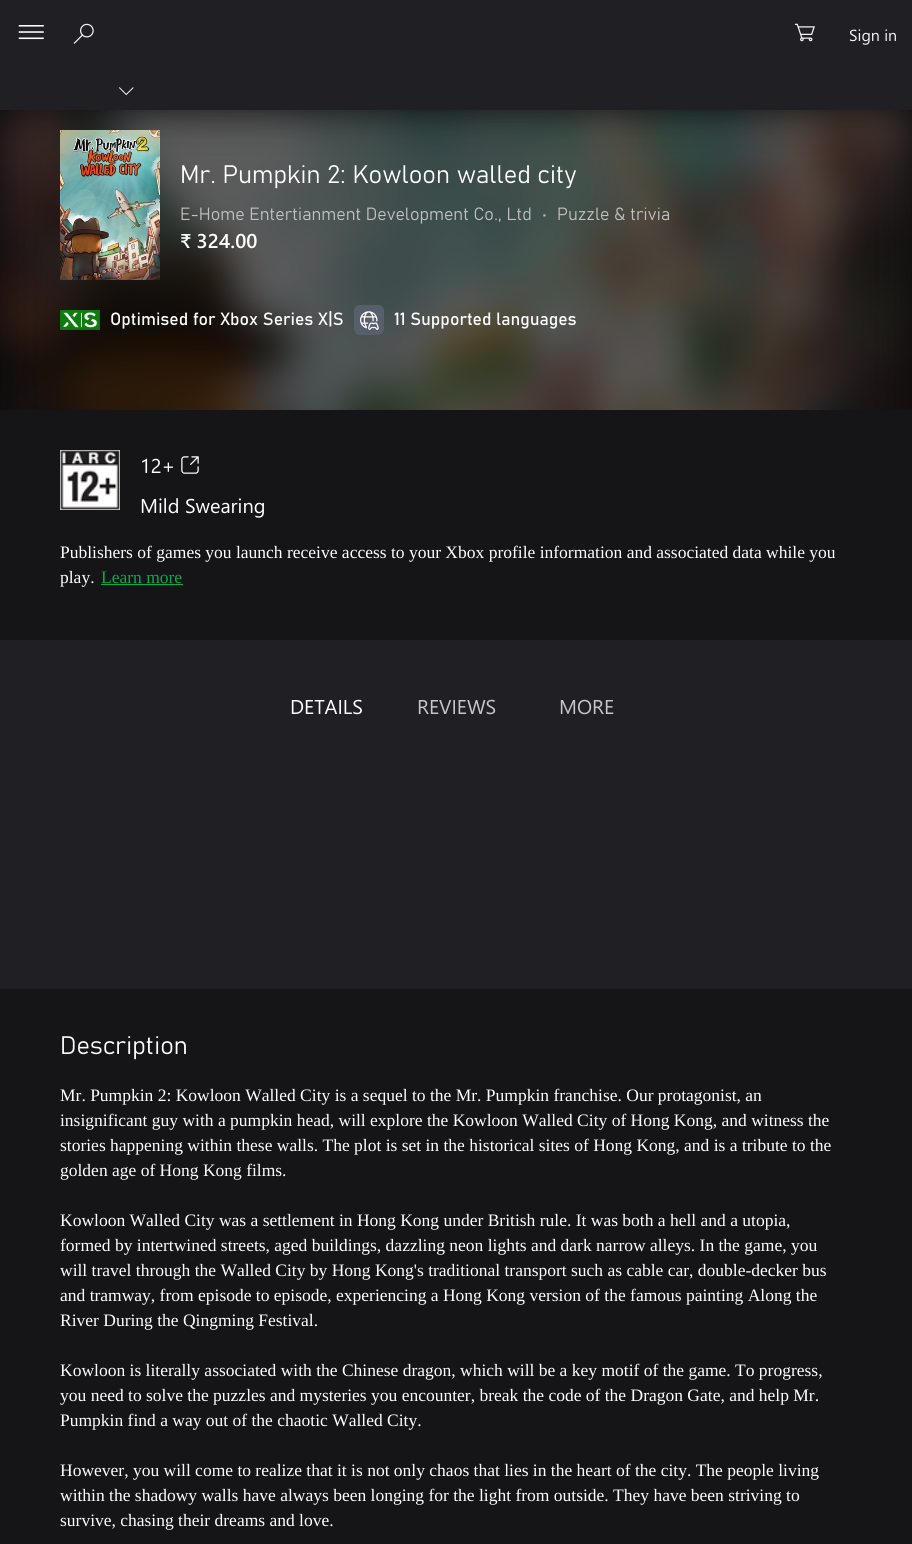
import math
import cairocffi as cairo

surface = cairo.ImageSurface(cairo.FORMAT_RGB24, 912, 1544)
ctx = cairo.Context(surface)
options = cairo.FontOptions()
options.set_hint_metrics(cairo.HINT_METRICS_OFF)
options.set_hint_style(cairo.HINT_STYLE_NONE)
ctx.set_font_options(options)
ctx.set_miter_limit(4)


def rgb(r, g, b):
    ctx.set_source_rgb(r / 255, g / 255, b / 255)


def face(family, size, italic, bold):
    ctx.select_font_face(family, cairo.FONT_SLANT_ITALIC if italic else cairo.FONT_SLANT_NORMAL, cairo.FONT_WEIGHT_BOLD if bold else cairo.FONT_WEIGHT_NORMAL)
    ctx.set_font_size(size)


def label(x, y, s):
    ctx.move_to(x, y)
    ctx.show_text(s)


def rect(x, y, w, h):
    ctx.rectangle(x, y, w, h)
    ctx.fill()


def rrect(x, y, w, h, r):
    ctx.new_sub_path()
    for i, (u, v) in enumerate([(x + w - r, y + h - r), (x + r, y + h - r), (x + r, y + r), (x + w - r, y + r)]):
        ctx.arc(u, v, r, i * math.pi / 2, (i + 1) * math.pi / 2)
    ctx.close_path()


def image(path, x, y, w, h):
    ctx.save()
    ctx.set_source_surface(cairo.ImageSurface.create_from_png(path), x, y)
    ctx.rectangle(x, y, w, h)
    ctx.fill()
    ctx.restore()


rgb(32, 31, 36)
ctx.paint()
rgb(12, 11, 13)
rect(0, 110, 912, 300)
image('image0.png', 18, 25, 26, 15)
image('image1.png', 73, 23, 21, 21)
image('image2.png', 795, 23, 20, 19)
face('Segoe UI', 16, 0, 0)
rgb(242, 242, 242)
label(849, 41, 'Sign in')
image('image3.png', 119, 87, 15, 9)
image('image4.png', 0, 110, 912, 300)
image('image5.png', 60, 130, 100, 150)
face('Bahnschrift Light', 25, 0, 0)
rgb(255, 255, 255)
label(180, 183, 'Mr. Pumpkin 2: Kowloon walled city')
face('Bahnschrift Light', 17.5, 0, 0)
rgb(191, 194, 194)
label(180, 220, 'E-Home Entertianment Development Co., Ltd')
label(542, 220, '•')
label(557, 220, 'Puzzle & trivia')
face('Segoe UI SemiBold', 20, 0, 0)
rgb(255, 255, 255)
label(180, 248, '₹ 324.00')
image('image6.png', 60, 310, 40, 20)
face('Bahnschrift', 17.5, 0, 0)
label(110, 325, 'Optimised for Xbox Series X|S')
rgb(87, 95, 107)
rrect(354, 305, 30, 30, 6)
ctx.fill()
image('image7.png', 360, 311, 19, 19)
rgb(255, 255, 255)
label(394, 325, '11 Supported languages')
rgb(21, 21, 23)
rect(0, 410, 912, 230)
image('image8.png', 60, 450, 60, 60)
face('Segoe UI', 20, 0, 0)
rgb(255, 255, 255)
label(140, 473, '12+')
image('image9.png', 181, 456, 18, 18)
label(140, 513, 'Mild Swearing')
face('Liberation Serif', 17.5, 0, 0)
label(60, 558, 'Publishers of games you launch receive access to your Xbox profile information and associated data while you')
label(60, 583, 'play.')
rgb(4, 171, 79)
label(101, 583, 'Learn more')
rect(101, 584, 82, 1)
face('Segoe UI', 20, 0, 0)
rgb(255, 255, 255)
label(290, 714, 'DETAILS')
rgb(199, 199, 200)
label(417, 714, 'REVIEWS')
label(559, 714, 'MORE')
rgb(21, 21, 23)
rect(0, 989, 912, 555)
face('Bahnschrift Light', 25, 0, 0)
rgb(255, 255, 255)
label(60, 1054, 'Description')
face('Liberation Serif', 17.5, 0, 0)
label(60, 1101, 'Mr. Pumpkin 2: Kowloon Walled City is a sequel to the Mr. Pumpkin franchise. Our protagonist, an')
label(60, 1126, 'insignificant guy with a pumpkin head, will explore the Kowloon Walled City of Hong Kong, and witness the')
label(60, 1151, 'stories happening within these walls. The plot is set in the historical sites of Hong Kong, and is a tribute to the')
label(60, 1176, 'golden age of Hong Kong films.')
label(60, 1226, 'Kowloon Walled City was a settlement in Hong Kong under British rule. It was both a hell and a utopia,')
label(60, 1251, 'formed by intertwined streets, aged buildings, dazzling neon lights and dark narrow alleys. In the game, you')
label(60, 1276, 'will travel through the Walled City by Hong Kong\'s traditional transport such as cable car, double-decker bus')
label(60, 1301, 'and tramway, from episode to episode, experiencing a Hong Kong version of the famous painting Along the')
label(60, 1326, 'River During the Qingming Festival.')
label(60, 1376, 'Kowloon is literally associated with the Chinese dragon, which will be a key motif of the game. To progress,')
label(60, 1401, 'you need to solve the puzzles and mysteries you encounter, break the code of the Dragon Gate, and help Mr.')
label(60, 1426, 'Pumpkin find a way out of the chaotic Walled City.')
label(60, 1476, 'However, you will come to realize that it is not only chaos that lies in the heart of the city. The people living')
label(60, 1501, 'within the shadowy walls have always been longing for the light from outside. They have been striving to')
label(60, 1526, 'survive, chasing their dreams and love.')
surface.write_to_png('render.png')
